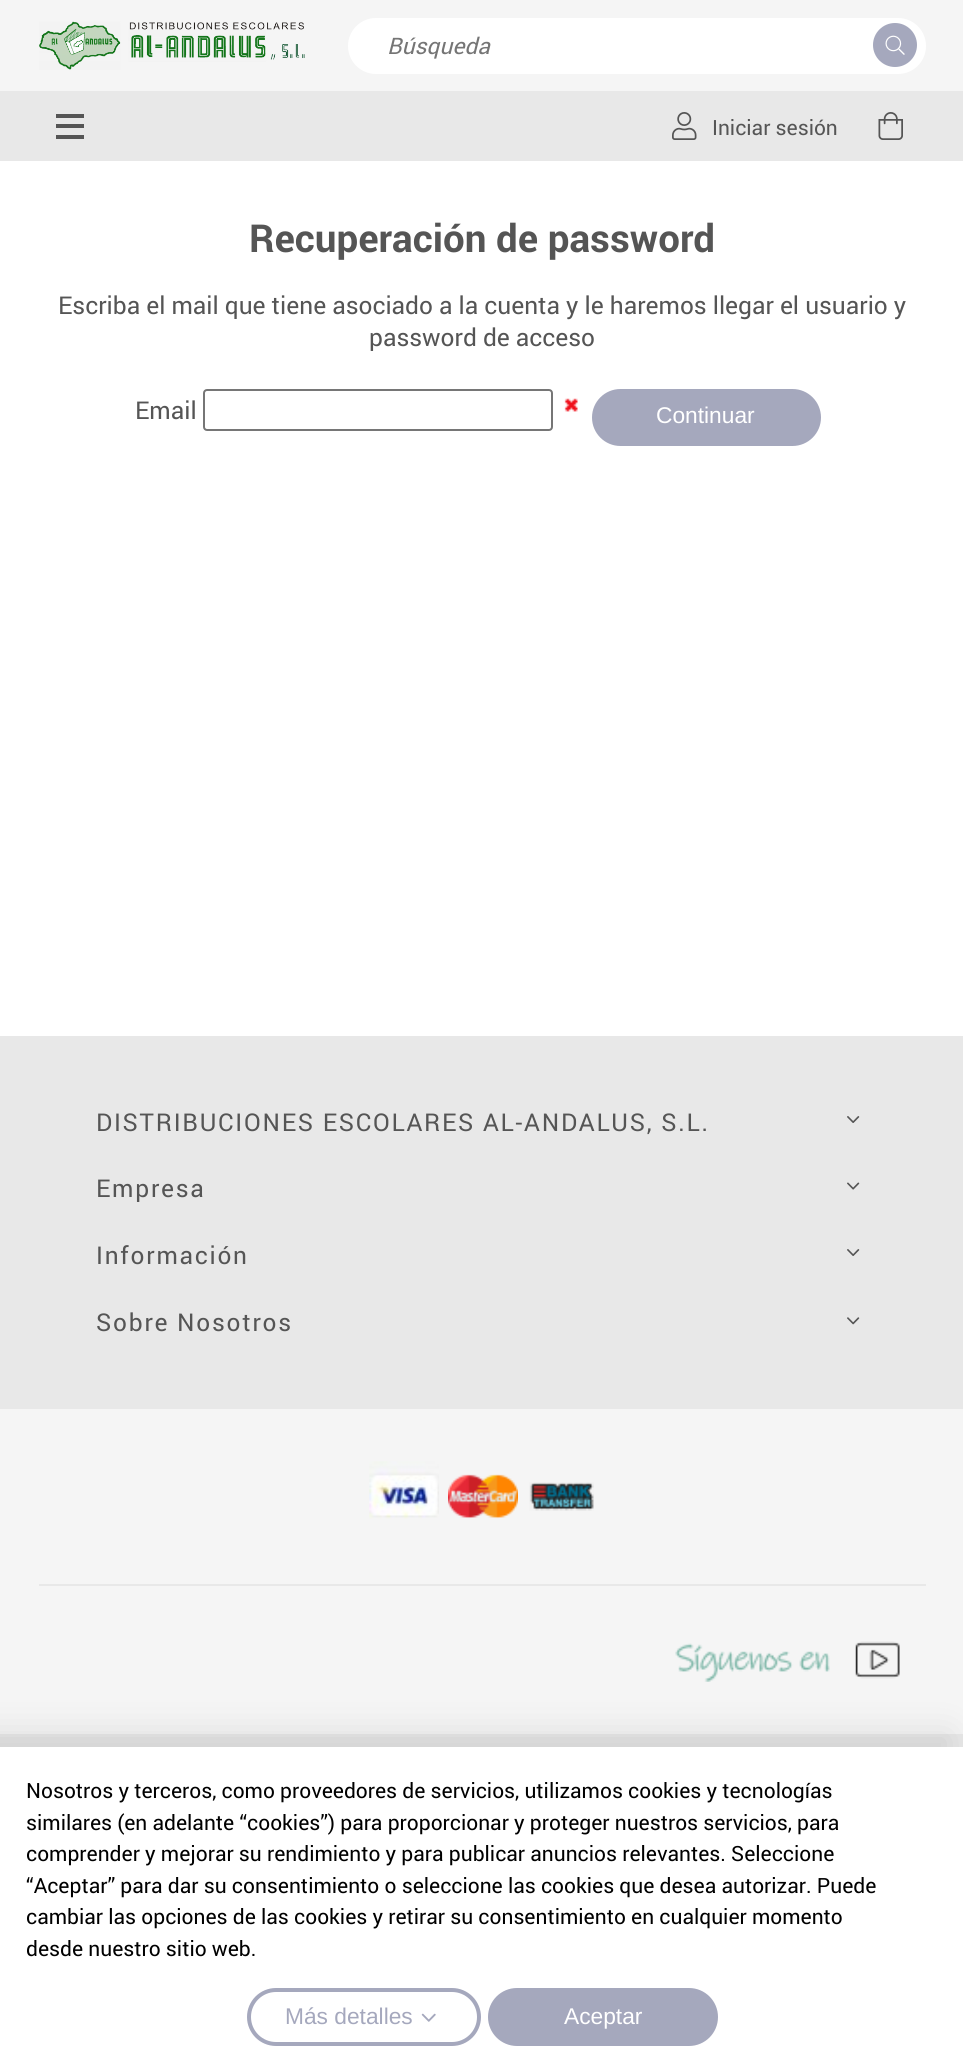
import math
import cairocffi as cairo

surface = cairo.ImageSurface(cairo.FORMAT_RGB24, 963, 2072)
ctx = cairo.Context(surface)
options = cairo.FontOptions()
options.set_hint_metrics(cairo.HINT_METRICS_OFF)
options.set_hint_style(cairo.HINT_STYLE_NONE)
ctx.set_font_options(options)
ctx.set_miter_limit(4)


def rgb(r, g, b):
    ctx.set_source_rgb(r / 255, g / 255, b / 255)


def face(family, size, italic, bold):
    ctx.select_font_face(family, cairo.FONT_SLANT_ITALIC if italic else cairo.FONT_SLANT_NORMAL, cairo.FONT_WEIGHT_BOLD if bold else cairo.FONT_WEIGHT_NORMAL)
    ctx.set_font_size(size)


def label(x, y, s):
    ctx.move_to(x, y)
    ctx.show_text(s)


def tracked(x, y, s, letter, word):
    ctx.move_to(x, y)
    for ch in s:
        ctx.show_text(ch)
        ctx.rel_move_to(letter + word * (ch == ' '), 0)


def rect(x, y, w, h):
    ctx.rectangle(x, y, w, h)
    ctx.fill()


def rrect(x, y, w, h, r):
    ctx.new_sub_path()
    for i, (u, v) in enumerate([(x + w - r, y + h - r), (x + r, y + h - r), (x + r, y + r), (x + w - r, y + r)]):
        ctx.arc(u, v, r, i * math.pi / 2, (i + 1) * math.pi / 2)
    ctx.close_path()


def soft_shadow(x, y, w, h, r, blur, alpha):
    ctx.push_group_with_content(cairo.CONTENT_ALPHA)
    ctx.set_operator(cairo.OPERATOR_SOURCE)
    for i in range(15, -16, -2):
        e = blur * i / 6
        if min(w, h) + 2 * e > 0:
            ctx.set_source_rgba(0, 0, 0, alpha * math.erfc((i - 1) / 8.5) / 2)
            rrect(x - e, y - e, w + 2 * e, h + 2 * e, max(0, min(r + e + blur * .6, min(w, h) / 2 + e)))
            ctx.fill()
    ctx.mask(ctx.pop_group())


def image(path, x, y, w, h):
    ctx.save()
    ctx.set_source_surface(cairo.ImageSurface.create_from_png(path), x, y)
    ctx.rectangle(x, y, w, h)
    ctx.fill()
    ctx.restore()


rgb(255, 255, 255)
ctx.paint()
rgb(245, 245, 245)
rect(0, 0, 963, 91)
image('image0.png', 39, 21, 266, 49)
rgb(255, 255, 255)
rrect(348, 18, 578, 56, 28)
ctx.fill()
face('roboto', 22.75, 1, 0)
rgb(117, 117, 117)
label(387, 54, 'Búsqueda')
rgb(165, 168, 189)
ctx.new_path()
ctx.arc(895, 45, 22, 0, 2 * math.pi)
ctx.fill()
image('image1.png', 885, 35, 20, 20)
rgb(232, 232, 232)
rect(0, 91, 963, 70)
rgb(85, 85, 85)
rect(56, 124, 28, 4)
rect(56, 114, 28, 4)
rect(56, 135, 28, 4)
image('image2.png', 672, 112, 25, 28)
face('roboto', 21, 0, 0)
label(712, 135, 'Iniciar sesión')
image('image3.png', 878, 112, 25, 28)
face('roboto', 38.5, 0, 1)
label(249, 252, 'Recuperación de password')
face('roboto', 24.5, 0, 0)
label(58, 314, 'Escriba el mail que tiene asociado a la cuenta y le haremos llegar el usuario y')
label(369, 346, 'password de acceso')
label(135, 419, 'Email')
rrect(204, 390, 348, 40, 3)
rgb(118, 118, 118)
ctx.stroke()
image('image4.png', 564, 398, 14, 14)
rgb(165, 168, 189)
rrect(594, 391, 225, 53, 26.5)
ctx.fill_preserve()
ctx.set_line_width(4)
ctx.stroke()
face('Liberation Sans', 22.75, 0, 0)
rgb(255, 255, 255)
label(656, 423, 'Continuar')
rgb(232, 232, 232)
rect(0, 1036, 963, 711)
face('roboto', 24.5, 0, 0)
rgb(85, 85, 85)
tracked(96, 1131, 'DISTRIBUCIONES ESCOLARES AL-ANDALUS, S.L.', 1.75, 0)
image('image5.png', 847, 1116, 13, 7)
tracked(96, 1197, 'Empresa', 1.75, 0)
image('image6.png', 847, 1182, 13, 8)
tracked(96, 1264, 'Información', 1.75, 0)
image('image5.png', 847, 1249, 13, 7)
tracked(96, 1331, 'Sobre Nosotros', 1.75, 0)
image('image7.png', 847, 1317, 13, 8)
rgb(245, 245, 245)
rect(0, 1409, 963, 325)
rgb(232, 232, 232)
rect(39, 1584, 887, 2)
image('image8.png', 369, 1461, 70, 58)
image('image9.png', 448, 1474, 70, 45)
image('image10.png', 529, 1482, 65, 29)
image('image11.png', 675, 1643, 155, 39)
image('image12.png', 855, 1641, 45, 38)
rgb(0, 0, 0)
soft_shadow(-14, 1734, 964, 326, 0, 17.5, 0.1)
rgb(255, 255, 255)
rect(0, 1747, 963, 325)
face('roboto', 21, 0, 0)
rgb(0, 0, 0)
label(26, 1798, 'Nosotros y terceros, como proveedores de servicios, utilizamos cookies y tecnologías')
label(26, 1830, 'similares (en adelante “cookies”) para proporcionar y proteger nuestros servicios, para')
label(26, 1861, 'comprender y mejorar su rendimiento y para publicar anuncios relevantes. Seleccione')
label(26, 1893, '“Aceptar” para dar su consentimiento o seleccione las cookies que desea autorizar. Puede')
label(26, 1924, 'cambiar las opciones de las cookies y retirar su consentimiento en cualquier momento')
label(26, 1956, 'desde nuestro sitio web.')
rrect(249, 1990, 230, 54, 27)
rgb(165, 168, 189)
ctx.stroke()
face('Liberation Sans', 22.75, 0, 0)
label(285, 2024, 'Más detalles')
image('image13.png', 421, 2013, 15, 9)
rrect(490, 1990, 226, 54, 27)
ctx.fill_preserve()
ctx.stroke()
rgb(255, 255, 255)
label(564, 2024, 'Aceptar')
surface.write_to_png('render.png')
